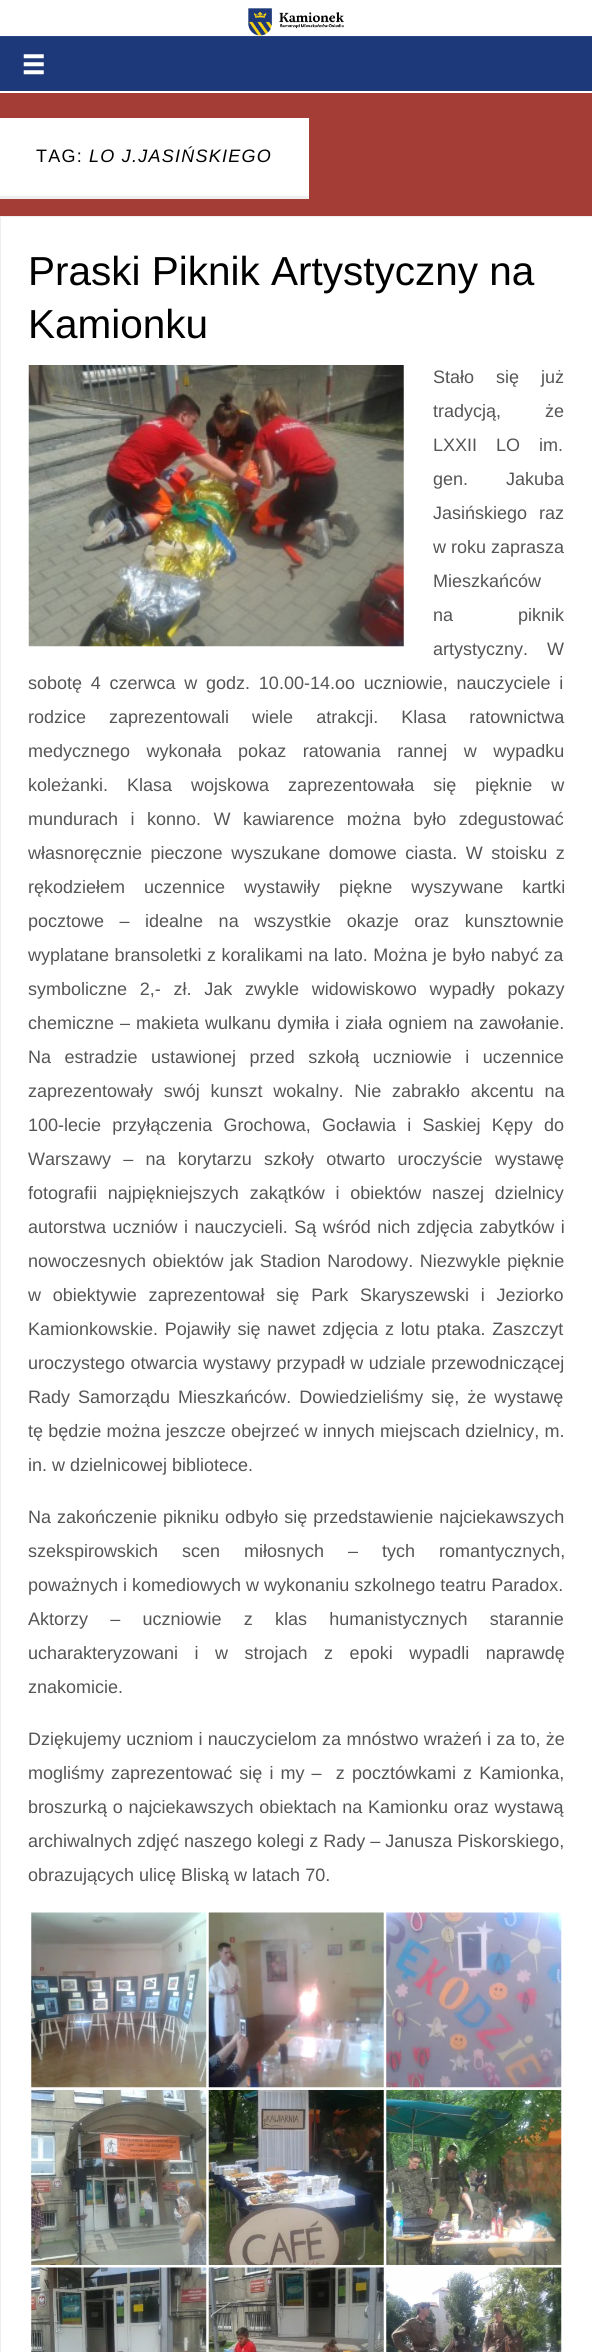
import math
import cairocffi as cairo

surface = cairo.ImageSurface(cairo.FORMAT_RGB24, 592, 2352)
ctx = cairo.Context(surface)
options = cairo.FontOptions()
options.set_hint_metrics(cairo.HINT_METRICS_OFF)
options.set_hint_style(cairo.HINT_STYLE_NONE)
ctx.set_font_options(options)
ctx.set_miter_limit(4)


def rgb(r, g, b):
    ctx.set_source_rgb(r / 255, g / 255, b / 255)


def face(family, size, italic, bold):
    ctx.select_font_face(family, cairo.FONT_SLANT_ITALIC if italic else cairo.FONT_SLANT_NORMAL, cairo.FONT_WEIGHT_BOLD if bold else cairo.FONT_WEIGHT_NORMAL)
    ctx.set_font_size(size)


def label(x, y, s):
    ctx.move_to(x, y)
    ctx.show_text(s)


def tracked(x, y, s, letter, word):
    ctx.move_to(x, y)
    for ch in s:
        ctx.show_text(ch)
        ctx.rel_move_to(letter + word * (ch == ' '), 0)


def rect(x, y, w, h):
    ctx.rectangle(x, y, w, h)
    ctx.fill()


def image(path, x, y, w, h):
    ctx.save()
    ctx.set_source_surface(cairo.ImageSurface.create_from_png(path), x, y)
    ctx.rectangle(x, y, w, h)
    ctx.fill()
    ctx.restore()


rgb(165, 61, 55)
ctx.paint()
rgb(255, 255, 255)
rect(0, 0, 592, 93)
rgb(30, 57, 122)
rect(0, 36, 592, 55)
image('image0.png', 0, 8, 592, 29)
image('image1.png', 23, 54, 21, 21)
rgb(255, 255, 255)
rect(0, 118, 309, 78)
rgb(238, 238, 238)
rect(0, 196, 309, 3)
face('Liberation Sans', 18, 0, 0)
rgb(0, 0, 0)
tracked(36, 162, 'TAG:', 1.25, 0)
face('Liberation Sans', 18, 1, 0)
tracked(89, 162, 'LO J.JASIŃSKIEGO', 1.25, 0)
rgb(255, 255, 255)
ctx.rectangle(0.5, 216.5, 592, 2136)
ctx.fill_preserve()
rgb(238, 238, 238)
ctx.set_line_width(1)
ctx.stroke()
face('Liberation Sans', 40.5, 0, 0)
rgb(0, 0, 0)
label(28, 285, 'Praski Piknik Artystyczny na')
label(28, 338, 'Kamionku')
image('image2.png', 28, 365, 376, 282)
face('Liberation Sans', 18, 0, 0)
rgb(85, 85, 85)
tracked(433, 383, 'Stało się już', 0, 17)
tracked(433, 417, 'tradycją, że', 0, 39)
tracked(433, 451, 'LXXII LO im.', 0, 14)
tracked(433, 485, 'gen. Jakuba', 0, 33)
tracked(433, 519, 'Jasińskiego raz', 0, 7)
label(433, 553, 'w roku zaprasza')
label(433, 587, 'Mieszkańców')
tracked(433, 621, 'na piknik', 0, 60)
tracked(433, 655, 'artystyczny. W', 0, 14)
tracked(28, 689, 'sobotę 4 czerwca w godz. 10.00-14.oo uczniowie, nauczyciele i', 0, 3.75)
tracked(28, 723, 'rodzice zaprezentowali wiele atrakcji. Klasa ratownictwa', 0, 18)
tracked(28, 757, 'medycznego wykonała pokaz ratowania rannej w wypadku', 0, 11.5)
tracked(28, 791, 'koleżanki. Klasa wojskowa zaprezentowała się pięknie w', 0, 14)
tracked(28, 825, 'mundurach i konno. W kawiarence można było zdegustować', 0, 7.5)
tracked(28, 859, 'własnoręcznie pieczone wyszukane domowe ciasta. W stoisku z', 0, 3.5)
tracked(28, 893, 'rękodziełem uczennice wystawiły piękne wyszywane kartki', 0, 14)
tracked(28, 927, 'pocztowe – idealne na wszystkie okazje oraz kunsztownie', 0, 10.5)
tracked(28, 961, 'wyplatane bransoletki z koralikami na lato. Można je było nabyć za', 0, 0.5)
tracked(28, 995, 'symboliczne 2,- zł. Jak zwykle widowiskowo wypadły pokazy', 0, 7.75)
tracked(28, 1029, 'chemiczne – makieta wulkanu dymiła i ziała ogniem na zawołanie.', 0, 1)
tracked(28, 1063, 'Na estradzie ustawionej przed szkołą uczniowie i uczennice', 0, 8.5)
tracked(28, 1097, 'zaprezentowały swój kunszt wokalny. Nie zabrakło akcentu na', 0, 5.75)
tracked(28, 1131, '100-lecie przyłączenia Grochowa, Gocławia i Saskiej Kępy do', 0, 6.25)
tracked(28, 1165, 'Warszawy – na korytarzu szkoły otwarto uroczyście wystawę', 0, 7.25)
tracked(28, 1199, 'fotografii najpiękniejszych zakątków i obiektów naszej dzielnicy', 0, 5.75)
tracked(28, 1233, 'autorstwa uczniów i nauczycieli. Są wśród nich zdjęcia zabytków i', 0, 1.5)
tracked(28, 1267, 'nowoczesnych obiektów jak Stadion Narodowy. Niezwykle pięknie', 0, 1.5)
tracked(28, 1301, 'w obiektywie zaprezentował się Park Skaryszewski i Jeziorko', 0, 6.75)
tracked(28, 1335, 'Kamionkowskie. Pojawiły się nawet zdjęcia z lotu ptaka. Zaszczyt', 0, 1.75)
tracked(28, 1369, 'uroczystego otwarcia wystawy przypadł w udziale przewodniczącej', 0, 0.5)
tracked(28, 1403, 'Rady Samorządu Mieszkańców. Dowiedzieliśmy się, że wystawę', 0, 3)
tracked(28, 1437, 'tę będzie można jeszcze obejrzeć w innych miejscach dzielnicy, m.', 0, 0.25)
label(28, 1471, 'in. w dzielnicowej bibliotece.')
tracked(28, 1523, 'Na zakończenie pikniku odbyło się przedstawienie najciekawszych', 0, 1)
tracked(28, 1557, 'szekspirowskich scen miłosnych – tych romantycznych,', 0, 19)
label(28, 1591, 'poważnych i komediowych w wykonaniu szkolnego teatru Paradox.')
tracked(28, 1625, 'Aktorzy – uczniowie z klas humanistycznych starannie', 0, 17.25)
tracked(28, 1659, 'ucharakteryzowani i w strojach z epoki wypadli naprawdę', 0, 11.5)
label(28, 1693, 'znakomicie.')
tracked(28, 1745, 'Dziękujemy uczniom i nauczycielom za mnóstwo wrażeń i za to, że', 0, 0.25)
tracked(28, 1779, 'mogliśmy zaprezentować się i my –  z pocztówkami z Kamionka,', 0, 2.1)
tracked(28, 1813, 'broszurką o najciekawszych obiektach na Kamionku oraz wystawą', 0, 0.75)
label(28, 1847, 'archiwalnych zdjęć naszego kolegi z Rady – Janusza Piskorskiego,')
label(28, 1881, 'obrazujących ulicę Bliską w latach 70.')
image('image3.png', 31, 1912, 176, 176)
image('image4.png', 208, 1912, 176, 176)
image('image5.png', 386, 1912, 176, 176)
image('image6.png', 31, 2090, 176, 175)
image('image7.png', 208, 2090, 176, 175)
image('image8.png', 386, 2090, 176, 175)
image('image9.png', 31, 2267, 176, 85)
image('image10.png', 208, 2267, 176, 85)
image('image11.png', 386, 2267, 176, 85)
surface.write_to_png('render.png')
